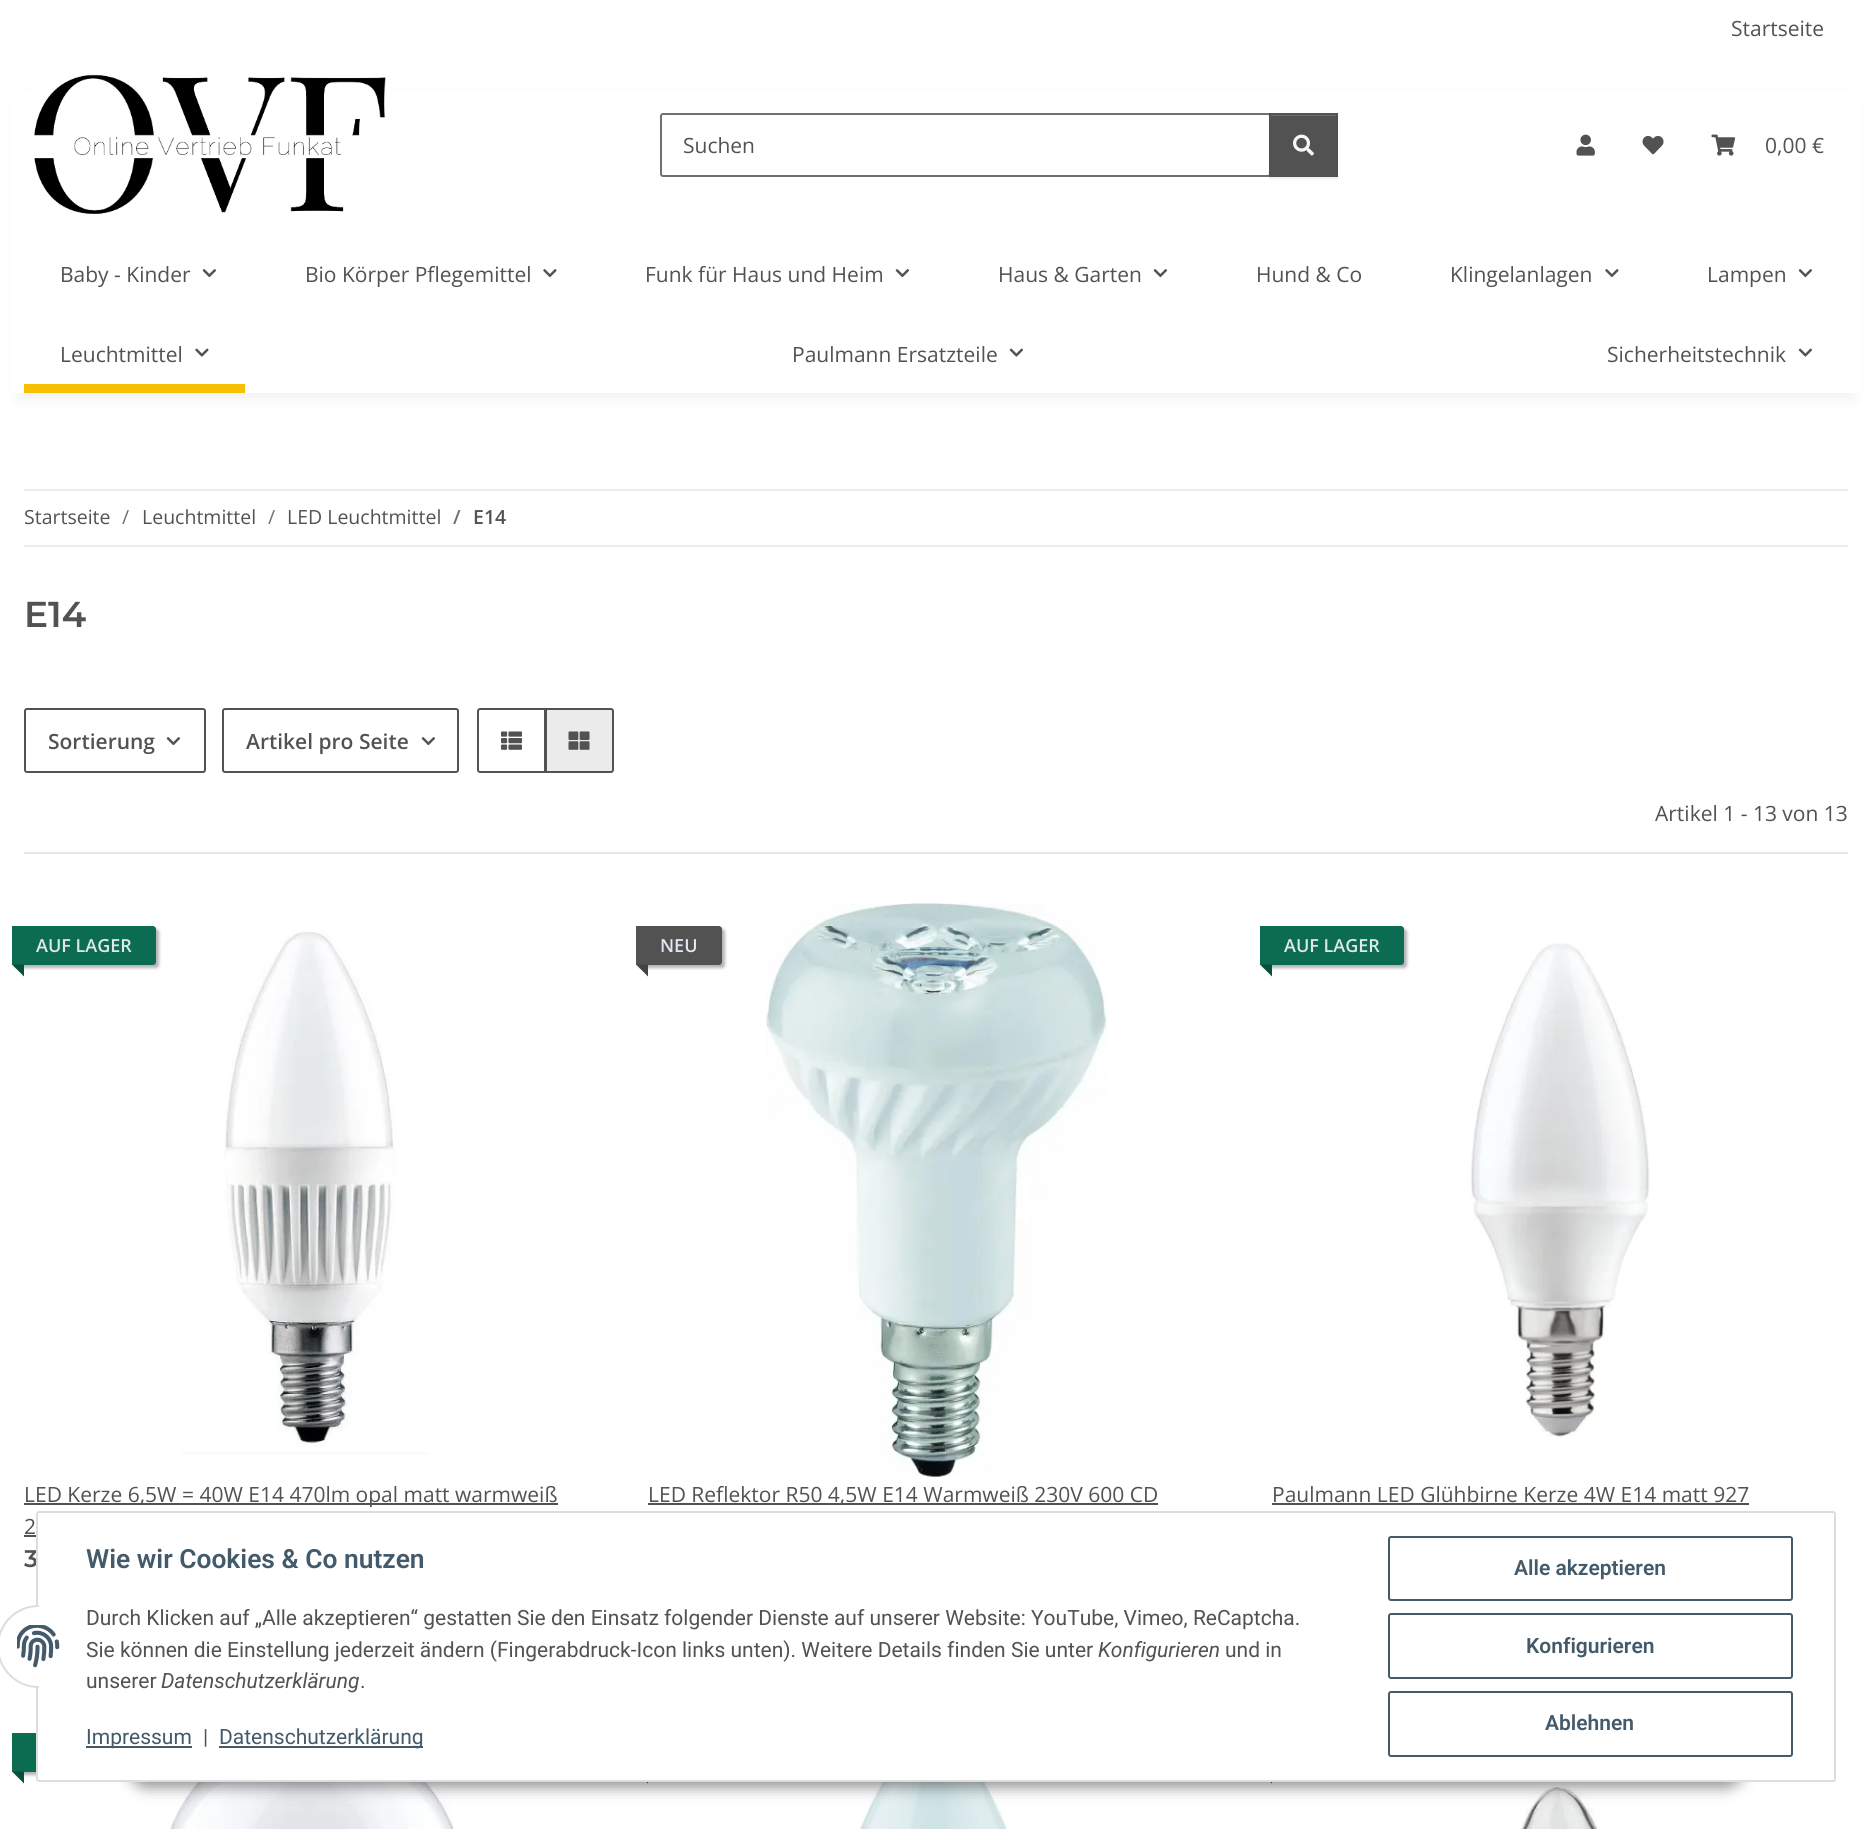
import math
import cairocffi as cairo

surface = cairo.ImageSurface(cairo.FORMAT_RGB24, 1871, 1829)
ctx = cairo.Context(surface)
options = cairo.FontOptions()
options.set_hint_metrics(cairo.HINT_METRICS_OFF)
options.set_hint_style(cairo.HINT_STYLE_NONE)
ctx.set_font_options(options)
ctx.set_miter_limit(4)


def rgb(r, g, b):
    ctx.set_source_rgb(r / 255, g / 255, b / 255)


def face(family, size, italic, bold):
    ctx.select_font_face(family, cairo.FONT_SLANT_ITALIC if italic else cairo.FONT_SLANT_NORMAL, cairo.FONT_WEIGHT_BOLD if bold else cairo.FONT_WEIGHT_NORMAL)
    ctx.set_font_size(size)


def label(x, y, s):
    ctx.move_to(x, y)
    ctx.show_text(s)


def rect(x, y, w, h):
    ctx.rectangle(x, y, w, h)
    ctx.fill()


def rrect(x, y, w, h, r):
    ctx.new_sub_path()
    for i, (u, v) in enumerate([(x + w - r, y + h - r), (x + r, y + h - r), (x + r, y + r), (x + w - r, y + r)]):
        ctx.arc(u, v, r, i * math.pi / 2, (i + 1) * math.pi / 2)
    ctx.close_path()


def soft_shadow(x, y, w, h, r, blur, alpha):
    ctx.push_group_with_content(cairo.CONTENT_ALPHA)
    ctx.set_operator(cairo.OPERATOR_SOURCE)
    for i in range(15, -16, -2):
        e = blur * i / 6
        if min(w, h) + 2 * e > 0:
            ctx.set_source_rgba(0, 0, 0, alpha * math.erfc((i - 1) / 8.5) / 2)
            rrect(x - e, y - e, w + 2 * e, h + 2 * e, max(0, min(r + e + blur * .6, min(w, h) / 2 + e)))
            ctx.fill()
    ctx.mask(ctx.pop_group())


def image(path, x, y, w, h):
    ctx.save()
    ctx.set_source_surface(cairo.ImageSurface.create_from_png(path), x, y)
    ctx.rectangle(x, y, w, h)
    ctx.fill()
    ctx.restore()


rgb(255, 255, 255)
ctx.paint()
face('Open Sans', 21, 0, 0)
rgb(82, 82, 82)
label(1731, 36, 'Startseite')
rgb(0, 0, 0)
soft_shadow(18, 98, 1836, 301, 0, 7, 0.06)
rgb(255, 255, 255)
rect(11, 91, 1850, 302)
image('image0.png', 34, 74, 352, 140)
rrect(661, 114, 609, 62, 2)
rgb(112, 112, 112)
ctx.stroke()
rgb(82, 82, 82)
label(683, 153, 'Suchen')
rgb(0, 0, 0)
soft_shadow(1269, 114, 69, 65, 0, 1, 0.07)
rgb(82, 82, 82)
rect(1271, 116, 65, 59)
rgb(108, 108, 108)
rect(1271, 115, 66, 1)
ctx.rectangle(1270, 114, 67, 62)
rgb(82, 82, 82)
ctx.stroke()
image('image1.png', 1293, 134, 21, 22)
image('image2.png', 1576, 134, 19, 22)
image('image3.png', 1642, 135, 22, 20)
image('image4.png', 1711, 134, 25, 22)
label(1765, 153, '0,00 €')
label(60, 282, 'Baby - Kinder')
image('image5.png', 202, 269, 15, 9)
label(305, 282, 'Bio Körper Pflegemittel')
image('image6.png', 543, 269, 14, 9)
label(645, 282, 'Funk für Haus und Heim')
image('image5.png', 895, 269, 15, 9)
label(998, 282, 'Haus & Garten')
image('image5.png', 1153, 269, 15, 9)
label(1256, 282, 'Hund & Co')
label(1450, 282, 'Klingelanlagen')
image('image6.png', 1605, 269, 14, 9)
label(1707, 282, 'Lampen')
image('image5.png', 1798, 269, 15, 9)
label(60, 362, 'Leuchtmittel')
image('image7.png', 195, 348, 14, 9)
rgb(248, 191, 0)
rect(24, 384, 221, 9)
rgb(82, 82, 82)
label(792, 362, 'Paulmann Ersatzteile')
image('image8.png', 1009, 348, 14, 9)
label(1607, 362, 'Sicherheitstechnik')
image('image8.png', 1798, 348, 14, 9)
rgb(235, 235, 235)
rect(24, 489, 1824, 2)
rect(24, 545, 1824, 2)
face('Open Sans', 19.5, 0, 0)
rgb(82, 82, 82)
label(24, 524, 'Startseite')
rgb(112, 112, 112)
label(122, 524, '/')
rgb(82, 82, 82)
label(142, 524, 'Leuchtmittel')
rgb(112, 112, 112)
label(268, 524, '/')
rgb(82, 82, 82)
label(287, 524, 'LED Leuchtmittel')
face('Open Sans SemiBold', 19.5, 0, 0)
rgb(112, 112, 112)
label(453, 524, '/')
rgb(82, 82, 82)
label(473, 524, 'E14')
face('Montserrat SemiBold', 36, 0, 0)
label(24, 627, 'E14')
rrect(25, 709, 180, 63, 2)
ctx.stroke()
face('Open Sans SemiBold', 21, 0, 0)
label(48, 749, 'Sortierung')
image('image5.png', 166, 737, 15, 9)
rrect(223, 709, 235, 63, 2)
ctx.stroke()
label(246, 749, 'Artikel pro Seite')
image('image5.png', 421, 737, 15, 9)
ctx.new_path()
ctx.move_to(480, 709)
ctx.line_to(545, 709)
ctx.line_to(545, 772)
ctx.line_to(480, 772)
ctx.curve_to(479, 772, 478, 771, 478, 770)
ctx.line_to(478, 711)
ctx.curve_to(478, 710, 479, 709, 480, 709)
ctx.close_path()
ctx.stroke()
image('image9.png', 501, 731, 21, 19)
rgb(235, 235, 235)
ctx.new_path()
ctx.move_to(546, 709)
ctx.line_to(611, 709)
ctx.curve_to(612, 709, 613, 710, 613, 711)
ctx.line_to(613, 770)
ctx.curve_to(613, 771, 612, 772, 611, 772)
ctx.line_to(546, 772)
ctx.close_path()
ctx.fill_preserve()
rgb(82, 82, 82)
ctx.stroke()
image('image10.png', 568, 731, 22, 19)
face('Open Sans', 21, 0, 0)
label(1655, 821, 'Artikel 1 - 13 von 13')
rgb(230, 230, 230)
rect(24, 852, 1824, 2)
rgb(0, 0, 0)
soft_shadow(15, 929, 144, 39, 3, 1.5, 0.3)
rgb(11, 108, 81)
ctx.new_path()
ctx.move_to(12, 926)
ctx.line_to(153, 926)
ctx.curve_to(154.5, 926, 156, 927.5, 156, 929)
ctx.line_to(156, 962)
ctx.curve_to(156, 963.5, 154.5, 965, 153, 965)
ctx.line_to(12, 965)
ctx.close_path()
ctx.fill()
face('Open Sans SemiBold', 18, 0, 0)
rgb(225, 231, 240)
label(36, 952, 'AUF LAGER')
rgb(8, 80, 60)
ctx.new_path()
ctx.move_to(24, 964.5)
ctx.line_to(24, 976.5)
ctx.line_to(12, 964.5)
ctx.close_path()
ctx.fill()
image('image11.png', 181, 931, 248, 524)
rgb(82, 82, 82)
rect(24, 1503, 534, 2)
face('Open Sans', 21, 0, 0)
label(24, 1502, 'LED Kerze 6,5W = 40W E14 470lm opal matt warmweiß')
label(24, 1534, '2')
rect(24, 1535, 12, 2)
face('Montserrat SemiBold', 24, 0, 0)
label(24, 1567, '3')
rgb(0, 0, 0)
soft_shadow(639, 929, 86, 39, 3, 1.5, 0.3)
rgb(82, 82, 82)
ctx.new_path()
ctx.move_to(636, 926)
ctx.line_to(719, 926)
ctx.curve_to(720.5, 926, 722, 927.5, 722, 929)
ctx.line_to(722, 962)
ctx.curve_to(722, 963.5, 720.5, 965, 719, 965)
ctx.line_to(636, 965)
ctx.close_path()
ctx.fill()
face('Open Sans SemiBold', 18, 0, 0)
rgb(225, 231, 240)
label(660, 952, 'NEU')
rgb(67, 67, 67)
ctx.new_path()
ctx.move_to(648, 964.5)
ctx.line_to(648, 976.5)
ctx.line_to(636, 964.5)
ctx.close_path()
ctx.fill()
image('image12.png', 766, 903, 341, 575)
rgb(82, 82, 82)
rect(648, 1503, 510, 2)
face('Open Sans', 21, 0, 0)
label(648, 1502, 'LED Reflektor R50 4,5W E14 Warmweiß 230V 600 CD')
rgb(0, 0, 0)
soft_shadow(1263, 929, 144, 39, 3, 1.5, 0.3)
rgb(11, 108, 81)
ctx.new_path()
ctx.move_to(1260, 926)
ctx.line_to(1401, 926)
ctx.curve_to(1402.5, 926, 1404, 927.5, 1404, 929)
ctx.line_to(1404, 962)
ctx.curve_to(1404, 963.5, 1402.5, 965, 1401, 965)
ctx.line_to(1260, 965)
ctx.close_path()
ctx.fill()
face('Open Sans SemiBold', 18, 0, 0)
rgb(225, 231, 240)
label(1284, 952, 'AUF LAGER')
rgb(8, 80, 60)
ctx.new_path()
ctx.move_to(1272, 964.5)
ctx.line_to(1272, 976.5)
ctx.line_to(1260, 964.5)
ctx.close_path()
ctx.fill()
image('image13.png', 1470, 943, 180, 494)
face('Open Sans', 21, 0, 0)
rgb(82, 82, 82)
label(1272, 1502, 'Paulmann LED Glühbirne Kerze 4W E14 matt 927')
rect(1272, 1503, 477, 2)
rgb(0, 0, 0)
soft_shadow(15, 1736, 144, 39, 3, 1.5, 0.3)
rgb(11, 108, 81)
rect(12, 1733, 24, 39)
rgb(8, 80, 60)
ctx.new_path()
ctx.move_to(24, 1771.5)
ctx.line_to(24, 1783.5)
ctx.line_to(12, 1771.5)
ctx.close_path()
ctx.fill()
image('image14.png', 170, 1782, 284, 47)
ctx.new_path()
ctx.move_to(648, 1771.5)
ctx.line_to(648, 1783.5)
ctx.line_to(636, 1771.5)
ctx.close_path()
ctx.fill()
image('image15.png', 859, 1782, 150, 47)
ctx.new_path()
ctx.move_to(1272, 1771.5)
ctx.line_to(1272, 1783.5)
ctx.line_to(1260, 1771.5)
ctx.close_path()
ctx.fill()
image('image16.png', 1521, 1785, 77, 44)
rgb(0, 0, 0)
soft_shadow(128, 1739, 1617, 48, 24, 7.5, 0.45)
rgb(255, 255, 255)
rrect(37, 1512, 1798, 269, 2)
ctx.fill_preserve()
rgb(221, 221, 221)
ctx.stroke()
rgb(255, 255, 255)
ctx.arc(38.5, 1646.5, 40.5, 0, 2 * math.pi)
ctx.fill_preserve()
rgb(221, 221, 221)
ctx.stroke()
rgb(255, 255, 255)
rect(39, 1605, 41, 83)
image('image17.png', 17, 1625, 43, 43)
face('Roboto SemiBold', 26.4, 0, 0)
rgb(67, 90, 107)
label(86, 1568, 'Wie wir Cookies & Co nutzen')
face('Roboto', 21, 0, 0)
rgb(82, 82, 82)
label(86, 1625, 'Durch Klicken auf „Alle akzeptieren“ gestatten Sie den Einsatz folgender Dienste auf unserer Website: YouTube, Vimeo, ReCaptcha.')
label(86, 1657, 'Sie können die Einstellung jederzeit ändern (Fingerabdruck-Icon links unten). Weitere Details finden Sie unter')
face('Roboto', 21, 1, 0)
label(1098, 1657, 'Konfigurieren')
face('Roboto', 21, 0, 0)
label(1225, 1657, 'und in')
label(86, 1688, 'unserer')
face('Roboto', 21, 1, 0)
label(161, 1688, 'Datenschutzerklärung')
face('Roboto', 21, 0, 0)
label(360, 1688, '.')
rgb(67, 90, 107)
rect(86, 1746, 106, 2)
label(86, 1744, 'Impressum')
rgb(82, 82, 82)
label(203, 1744, '|')
rgb(67, 90, 107)
rect(219, 1746, 204, 2)
label(219, 1744, 'Datenschutzerklärung')
rrect(1389, 1537, 403, 63, 2)
ctx.stroke()
face('Roboto SemiBold', 21, 0, 0)
label(1514, 1575, 'Alle akzeptieren')
rrect(1389, 1614, 403, 64, 2)
ctx.stroke()
label(1526, 1653, 'Konfigurieren')
rrect(1389, 1692, 403, 64, 2)
ctx.stroke()
label(1545, 1730, 'Ablehnen')
surface.write_to_png('render.png')
